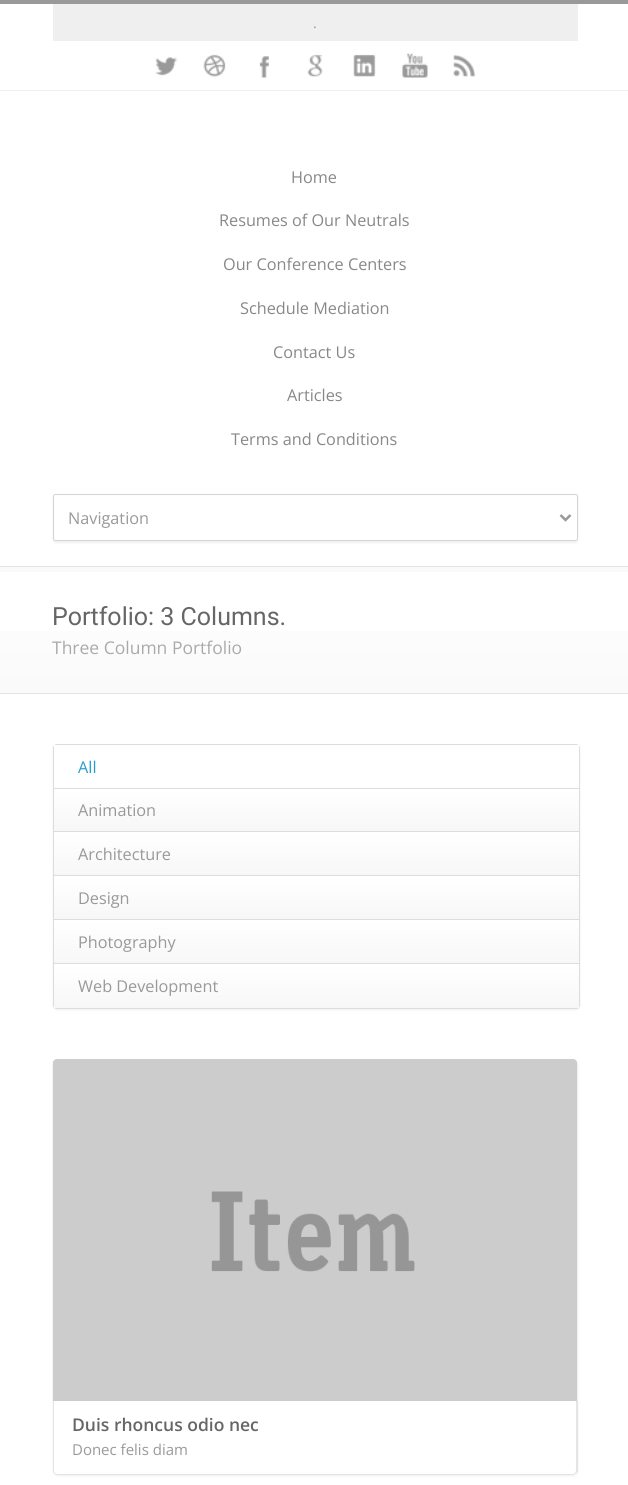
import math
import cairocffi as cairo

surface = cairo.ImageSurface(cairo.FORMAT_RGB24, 628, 1485)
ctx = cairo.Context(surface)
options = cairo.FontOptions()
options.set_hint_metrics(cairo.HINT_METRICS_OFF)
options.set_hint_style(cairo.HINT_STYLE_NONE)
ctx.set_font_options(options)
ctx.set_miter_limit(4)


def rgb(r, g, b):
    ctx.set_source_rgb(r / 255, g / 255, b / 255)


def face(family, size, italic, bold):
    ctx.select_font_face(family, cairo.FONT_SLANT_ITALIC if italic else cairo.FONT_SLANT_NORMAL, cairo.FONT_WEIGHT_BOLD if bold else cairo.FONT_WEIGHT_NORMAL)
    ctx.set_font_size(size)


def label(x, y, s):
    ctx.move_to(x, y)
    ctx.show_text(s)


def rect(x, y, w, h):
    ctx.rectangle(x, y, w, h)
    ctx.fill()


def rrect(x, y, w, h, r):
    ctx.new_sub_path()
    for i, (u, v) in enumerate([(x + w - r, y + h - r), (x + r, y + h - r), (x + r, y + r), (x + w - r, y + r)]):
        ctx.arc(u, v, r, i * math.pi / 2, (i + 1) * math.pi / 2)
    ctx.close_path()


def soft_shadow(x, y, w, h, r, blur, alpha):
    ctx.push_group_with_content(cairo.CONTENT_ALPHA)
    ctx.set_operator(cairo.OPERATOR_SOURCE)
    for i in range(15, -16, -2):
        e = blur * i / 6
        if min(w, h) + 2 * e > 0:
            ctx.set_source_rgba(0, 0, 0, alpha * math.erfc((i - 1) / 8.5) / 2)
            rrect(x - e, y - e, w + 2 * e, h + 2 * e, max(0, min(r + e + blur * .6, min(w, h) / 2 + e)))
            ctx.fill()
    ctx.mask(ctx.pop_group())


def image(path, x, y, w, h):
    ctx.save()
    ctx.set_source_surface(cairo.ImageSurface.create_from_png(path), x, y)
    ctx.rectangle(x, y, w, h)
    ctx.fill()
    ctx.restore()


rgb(255, 255, 255)
ctx.paint()
rgb(153, 153, 153)
rect(0, 0, 628, 4)
rgb(239, 239, 239)
rect(0, 90, 628, 1)
rect(53, 4, 525, 37)
face('Open Sans', 14, 0, 0)
rgb(153, 153, 153)
label(313, 28, '.')
image('image0.png', 155, 57, 23, 19)
image('image1.png', 203, 54, 23, 23)
image('image2.png', 259, 56, 10, 22)
image('image3.png', 307, 54, 16, 23)
image('image4.png', 353, 54, 23, 23)
image('image5.png', 402, 53, 26, 25)
image('image6.png', 453, 55, 23, 22)
face('Open Sans', 16.25, 0, 0)
rgb(136, 136, 136)
label(291, 183, 'Home')
label(219, 226, 'Resumes of Our Neutrals')
label(223, 270, 'Our Conference Centers')
label(240, 314, 'Schedule Mediation')
label(273, 358, 'Contact Us')
label(287, 401, 'Articles')
label(231, 445, 'Terms and Conditions')
rgb(180, 180, 180)
soft_shadow(53, 495, 525, 48, 2.5, 1, 0.2)
rgb(255, 255, 255)
rrect(53.5, 494.5, 524, 46, 2)
ctx.fill_preserve()
rgb(212, 212, 212)
ctx.set_line_width(1)
ctx.stroke()
ctx.new_path()
ctx.move_to(560.5, 515)
ctx.line_to(565.5, 520)
ctx.line_to(570.5, 515)
rgb(153, 153, 153)
ctx.set_line_width(2.5)
ctx.stroke()
label(68, 524, 'Navigation')
gradient = cairo.LinearGradient(314, 568, 314, 443)
gradient.add_color_stop_rgba(0, 0.98, 0.98, 0.98, 1)
gradient.add_color_stop_rgba(1, 1, 1, 1, 1)
ctx.set_source(gradient)
rect(0, 567, 628, 1)
gradient = cairo.LinearGradient(314, 693, 314, 568)
gradient.add_color_stop_rgba(0, 0.98, 0.98, 0.98, 1)
gradient.add_color_stop_rgba(1, 1, 1, 1, 1)
ctx.set_source(gradient)
rect(0, 631, 628, 62)
rgb(250, 250, 250)
rect(0, 568, 628, 4)
rgb(228, 228, 228)
rect(0, 566, 628, 1)
rect(0, 693, 628, 1)
face('Roboto', 25, 0, 0)
rgb(102, 102, 102)
label(52, 625, 'Portfolio: 3 Columns.')
face('Open Sans', 17.5, 0, 0)
rgb(170, 170, 170)
label(52, 654, 'Three Column Portfolio')
rgb(180, 180, 180)
soft_shadow(53, 745, 527, 265, 4, 1, 0.2)
rrect(53.5, 744.5, 526, 264, 3.5)
rgb(221, 221, 221)
ctx.set_line_width(1)
ctx.stroke()
rgb(255, 255, 255)
rect(54, 745, 525, 43)
rgb(221, 221, 221)
rect(54, 788, 525, 1)
face('Open Sans', 16.25, 0, 0)
rgb(40, 157, 204)
label(78, 773, 'All')
gradient = cairo.LinearGradient(316, 831, 316, 789)
gradient.add_color_stop_rgba(0, 0.969, 0.969, 0.969, 1)
gradient.add_color_stop_rgba(1, 1, 1, 1, 1)
ctx.set_source(gradient)
rect(54, 789, 525, 42)
gradient = cairo.LinearGradient(316, 874, 316, 831)
gradient.add_color_stop_rgba(0, 0.969, 0.969, 0.969, 1)
gradient.add_color_stop_rgba(1, 1, 1, 1, 1)
ctx.set_source(gradient)
rect(54, 832, 525, 1)
rgb(221, 221, 221)
rect(54, 831, 525, 1)
rgb(153, 153, 153)
label(78, 816, 'Animation')
gradient = cairo.LinearGradient(316, 875, 316, 833)
gradient.add_color_stop_rgba(0, 0.969, 0.969, 0.969, 1)
gradient.add_color_stop_rgba(1, 1, 1, 1, 1)
ctx.set_source(gradient)
rect(54, 833, 525, 42)
rgb(221, 221, 221)
rect(54, 875, 525, 1)
rgb(153, 153, 153)
label(78, 860, 'Architecture')
gradient = cairo.LinearGradient(316, 919, 316, 876)
gradient.add_color_stop_rgba(0, 0.969, 0.969, 0.969, 1)
gradient.add_color_stop_rgba(1, 1, 1, 1, 1)
ctx.set_source(gradient)
rect(54, 876, 525, 43)
rgb(221, 221, 221)
rect(54, 919, 525, 1)
rgb(153, 153, 153)
label(78, 904, 'Design')
gradient = cairo.LinearGradient(316, 963, 316, 920)
gradient.add_color_stop_rgba(0, 0.969, 0.969, 0.969, 1)
gradient.add_color_stop_rgba(1, 1, 1, 1, 1)
ctx.set_source(gradient)
rect(54, 920, 525, 43)
rgb(221, 221, 221)
rect(54, 963, 525, 1)
rgb(153, 153, 153)
label(78, 948, 'Photography')
gradient = cairo.LinearGradient(316, 1008, 316, 964)
gradient.add_color_stop_rgba(0, 0.969, 0.969, 0.969, 1)
gradient.add_color_stop_rgba(1, 1, 1, 1, 1)
ctx.set_source(gradient)
rect(54, 964, 525, 44)
rgb(153, 153, 153)
label(78, 992, 'Web Development')
rgb(180, 180, 180)
soft_shadow(53, 1060, 525, 416, 5, 1, 0.2)
image('image7.png', 52, 1059, 526, 342)
rgb(255, 255, 255)
ctx.new_path()
ctx.move_to(53, 1401)
ctx.line_to(578, 1401)
ctx.line_to(578, 1470)
ctx.curve_to(578, 1473, 576, 1475, 573, 1475)
ctx.line_to(58, 1475)
ctx.curve_to(55, 1475, 53, 1473, 53, 1470)
ctx.close_path()
ctx.fill()
rgb(228, 228, 228)
ctx.new_path()
ctx.move_to(54, 1401)
ctx.line_to(54, 1470)
ctx.curve_to(54, 1472, 55, 1474, 58, 1474)
ctx.line_to(572, 1474)
ctx.curve_to(575, 1474, 576, 1472, 576, 1470)
ctx.line_to(576, 1401)
ctx.line_to(578, 1401)
ctx.line_to(578, 1470)
ctx.curve_to(578, 1473, 575, 1475, 572, 1475)
ctx.line_to(58, 1475)
ctx.curve_to(55, 1475, 53, 1473, 53, 1470)
ctx.line_to(53, 1401)
ctx.close_path()
ctx.fill()
face('Open Sans SemiBold', 17.5, 0, 0)
rgb(102, 102, 102)
label(72, 1431, 'Duis rhoncus odio nec')
face('Open Sans', 15, 0, 0)
rgb(153, 153, 153)
label(72, 1455, 'Donec felis diam')
surface.write_to_png('render.png')
